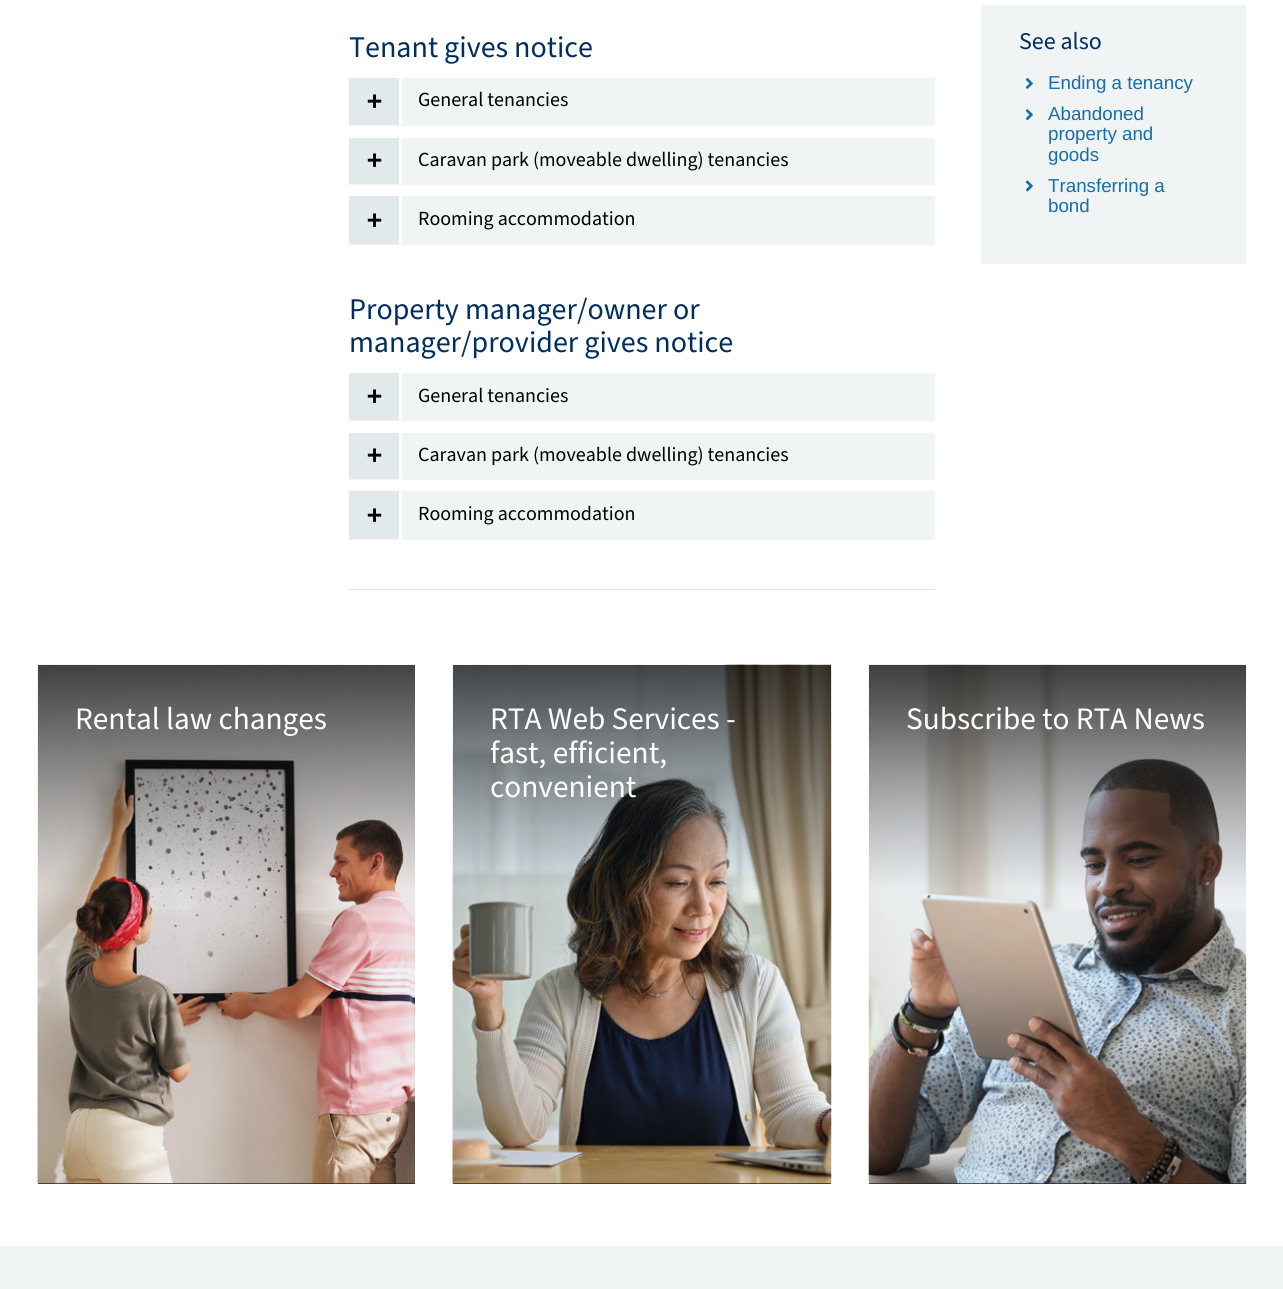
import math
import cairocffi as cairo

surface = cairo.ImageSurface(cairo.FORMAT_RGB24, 1283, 1289)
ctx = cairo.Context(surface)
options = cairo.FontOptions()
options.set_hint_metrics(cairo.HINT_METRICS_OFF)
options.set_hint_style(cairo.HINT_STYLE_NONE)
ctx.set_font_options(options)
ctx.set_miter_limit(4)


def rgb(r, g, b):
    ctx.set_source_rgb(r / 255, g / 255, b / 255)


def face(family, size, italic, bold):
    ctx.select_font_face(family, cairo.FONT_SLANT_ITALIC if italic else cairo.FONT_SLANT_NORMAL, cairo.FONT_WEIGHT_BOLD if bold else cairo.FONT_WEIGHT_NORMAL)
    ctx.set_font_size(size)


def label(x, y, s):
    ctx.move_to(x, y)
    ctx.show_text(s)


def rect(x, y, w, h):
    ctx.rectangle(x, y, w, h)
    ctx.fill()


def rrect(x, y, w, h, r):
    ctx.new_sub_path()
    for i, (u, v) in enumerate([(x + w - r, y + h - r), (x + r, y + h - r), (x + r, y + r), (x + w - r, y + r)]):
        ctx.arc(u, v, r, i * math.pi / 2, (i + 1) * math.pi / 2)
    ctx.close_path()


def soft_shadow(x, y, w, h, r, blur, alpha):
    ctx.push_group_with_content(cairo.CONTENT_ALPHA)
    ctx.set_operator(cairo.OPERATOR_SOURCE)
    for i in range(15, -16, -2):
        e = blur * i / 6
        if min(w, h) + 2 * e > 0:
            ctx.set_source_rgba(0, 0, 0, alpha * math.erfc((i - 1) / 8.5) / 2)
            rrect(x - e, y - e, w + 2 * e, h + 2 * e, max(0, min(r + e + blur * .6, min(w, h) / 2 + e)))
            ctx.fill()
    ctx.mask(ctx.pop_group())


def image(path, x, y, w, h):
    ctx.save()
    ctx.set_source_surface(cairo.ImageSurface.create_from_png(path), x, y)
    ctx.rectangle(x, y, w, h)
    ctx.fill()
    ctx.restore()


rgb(255, 255, 255)
ctx.paint()
face('Source Sans Pro', 30, 0, 0)
rgb(0, 46, 95)
label(349, 57, 'Tenant gives notice')
rgb(0, 0, 0)
soft_shadow(349, 79, 586, 47, 0, 0.5, 0.05)
rgb(240, 244, 245)
rect(402, 78, 533, 47)
rgb(255, 255, 255)
rect(399, 78, 3, 47)
rgb(225, 233, 235)
rect(349, 78, 50, 47)
face('DejaVu Sans Mono', 25, 0, 1)
rgb(0, 0, 0)
label(367, 109, '+')
face('Source Sans Pro', 20, 0, 0)
label(418, 106, 'General tenancies')
rgb(0, 0, 0)
soft_shadow(349, 139, 586, 46, 0, 0.5, 0.05)
rgb(240, 244, 245)
rect(402, 138, 533, 46)
rgb(255, 255, 255)
rect(399, 138, 3, 46)
rgb(225, 233, 235)
rect(349, 138, 50, 46)
face('DejaVu Sans Mono', 25, 0, 1)
rgb(0, 0, 0)
label(367, 168, '+')
face('Source Sans Pro', 20, 0, 0)
label(418, 166, 'Caravan park (moveable dwelling) tenancies')
rgb(0, 0, 0)
soft_shadow(349, 198, 586, 47, 0, 0.5, 0.05)
rgb(240, 244, 245)
rect(402, 196, 533, 48)
rgb(255, 255, 255)
rect(399, 196, 3, 48)
rgb(225, 233, 235)
rect(349, 196, 50, 48)
face('DejaVu Sans Mono', 25, 0, 1)
rgb(0, 0, 0)
label(367, 228, '+')
face('Source Sans Pro', 20, 0, 0)
label(418, 225, 'Rooming accommodation')
face('Source Sans Pro', 30, 0, 0)
rgb(0, 46, 95)
label(349, 319, 'Property manager/owner or')
label(349, 352, 'manager/provider gives notice')
rgb(0, 0, 0)
soft_shadow(349, 374, 586, 47, 0, 0.5, 0.05)
rgb(240, 244, 245)
rect(402, 373, 533, 47)
rgb(255, 255, 255)
rect(399, 373, 3, 47)
rgb(225, 233, 235)
rect(349, 373, 50, 47)
face('DejaVu Sans Mono', 25, 0, 1)
rgb(0, 0, 0)
label(367, 404, '+')
face('Source Sans Pro', 20, 0, 0)
label(418, 402, 'General tenancies')
rgb(0, 0, 0)
soft_shadow(349, 434, 586, 46, 0, 0.5, 0.05)
rgb(240, 244, 245)
rect(402, 433, 533, 46)
rgb(255, 255, 255)
rect(399, 433, 3, 46)
rgb(225, 233, 235)
rect(349, 433, 50, 46)
face('DejaVu Sans Mono', 25, 0, 1)
rgb(0, 0, 0)
label(367, 463, '+')
face('Source Sans Pro', 20, 0, 0)
label(418, 461, 'Caravan park (moveable dwelling) tenancies')
rgb(0, 0, 0)
soft_shadow(349, 493, 586, 47, 0, 0.5, 0.05)
rgb(240, 244, 245)
rect(402, 491, 533, 48)
rgb(255, 255, 255)
rect(399, 491, 3, 48)
rgb(225, 233, 235)
rect(349, 491, 50, 48)
face('DejaVu Sans Mono', 25, 0, 1)
rgb(0, 0, 0)
label(367, 523, '+')
face('Source Sans Pro', 20, 0, 0)
label(418, 520, 'Rooming accommodation')
rgb(227, 227, 227)
rect(349, 589, 586, 1)
rgb(240, 244, 245)
rect(981, 5, 265, 259)
face('Source Sans Pro', 24, 0, 0)
rgb(0, 46, 95)
label(1019, 49, 'See also')
image('image0.png', 1025, 78, 8, 11)
face('Liberation Sans', 18.75, 0, 0)
rgb(23, 110, 170)
label(1048, 89, 'Ending a tenancy')
image('image1.png', 1025, 109, 8, 12)
label(1048, 120, 'Abandoned')
label(1048, 140, 'property and')
label(1048, 161, 'goods')
image('image2.png', 1025, 180, 8, 12)
label(1048, 192, 'Transferring a')
label(1048, 212, 'bond')
rgb(0, 46, 95)
rect(38, 1183, 377, 1)
image('image3.png', 37, 664, 378, 520)
face('Source Sans Pro', 31.25, 0, 0)
rgb(255, 255, 255)
label(75, 729, 'Rental law changes')
rgb(0, 46, 95)
rect(453, 1183, 378, 1)
image('image4.png', 452, 664, 380, 520)
rgb(255, 255, 255)
label(490, 729, 'RTA Web Services -')
label(490, 763, 'fast, efficient,')
label(490, 797, 'convenient')
rgb(0, 46, 95)
rect(869, 1183, 377, 1)
image('image5.png', 868, 664, 379, 520)
rgb(255, 255, 255)
label(906, 729, 'Subscribe to RTA News')
rgb(240, 244, 245)
rect(0, 1246, 1283, 43)
surface.write_to_png('render.png')
